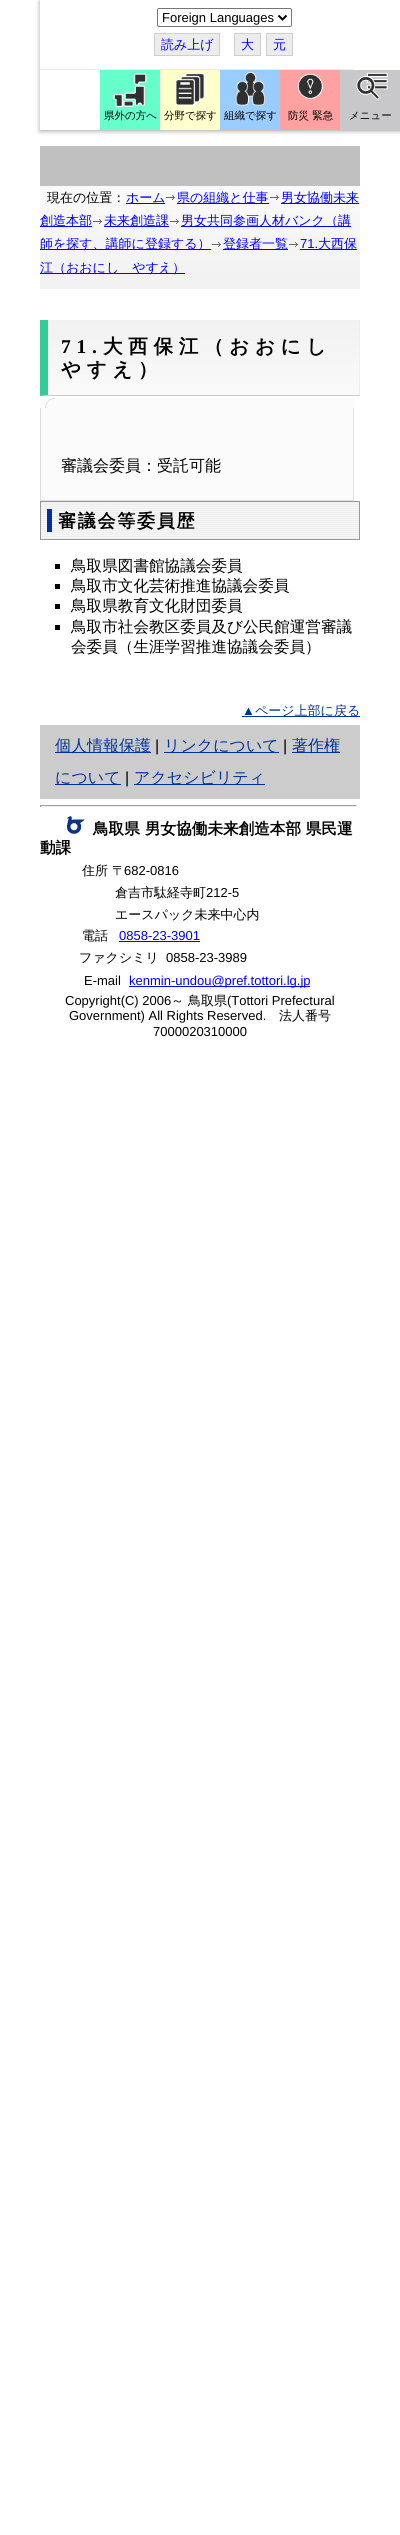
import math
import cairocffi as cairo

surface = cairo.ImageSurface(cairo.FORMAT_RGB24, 400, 2535)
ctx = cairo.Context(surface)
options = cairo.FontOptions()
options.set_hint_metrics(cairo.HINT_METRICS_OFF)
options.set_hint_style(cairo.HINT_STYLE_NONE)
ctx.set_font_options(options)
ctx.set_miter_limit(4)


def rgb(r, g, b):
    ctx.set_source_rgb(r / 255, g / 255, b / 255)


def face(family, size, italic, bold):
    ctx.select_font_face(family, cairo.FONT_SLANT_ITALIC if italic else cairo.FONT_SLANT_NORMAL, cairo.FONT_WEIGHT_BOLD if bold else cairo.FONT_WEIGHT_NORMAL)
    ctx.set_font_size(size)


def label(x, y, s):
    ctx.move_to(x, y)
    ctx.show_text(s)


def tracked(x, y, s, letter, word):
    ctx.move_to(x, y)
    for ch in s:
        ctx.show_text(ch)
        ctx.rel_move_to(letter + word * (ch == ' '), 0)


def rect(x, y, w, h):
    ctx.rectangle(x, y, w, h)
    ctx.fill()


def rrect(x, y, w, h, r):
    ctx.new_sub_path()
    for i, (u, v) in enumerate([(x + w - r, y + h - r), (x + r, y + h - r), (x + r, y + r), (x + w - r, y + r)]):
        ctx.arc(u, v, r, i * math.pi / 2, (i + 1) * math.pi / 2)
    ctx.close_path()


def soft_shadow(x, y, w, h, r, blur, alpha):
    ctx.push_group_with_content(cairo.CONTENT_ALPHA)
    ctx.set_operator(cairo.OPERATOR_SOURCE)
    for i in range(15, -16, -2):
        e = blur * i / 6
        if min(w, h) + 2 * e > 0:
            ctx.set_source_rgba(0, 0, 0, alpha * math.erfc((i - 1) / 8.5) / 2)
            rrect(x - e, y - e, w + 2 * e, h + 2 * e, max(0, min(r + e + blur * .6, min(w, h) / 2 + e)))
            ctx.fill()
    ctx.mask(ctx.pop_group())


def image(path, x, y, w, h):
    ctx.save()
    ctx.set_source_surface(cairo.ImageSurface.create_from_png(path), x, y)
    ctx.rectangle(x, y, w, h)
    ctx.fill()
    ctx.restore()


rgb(255, 255, 255)
ctx.paint()
ctx.save()
ctx.set_fill_rule(cairo.FILL_RULE_EVEN_ODD)
ctx.new_path()
ctx.move_to(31, 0)
ctx.line_to(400, 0)
ctx.line_to(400, 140)
ctx.line_to(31, 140)
ctx.close_path()
ctx.move_to(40, 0)
ctx.line_to(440, 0)
ctx.line_to(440, 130)
ctx.line_to(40, 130)
ctx.close_path()
ctx.clip()
rgb(0, 0, 0)
soft_shadow(40, 1, 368, 130, 0, 2.5, 0.1)
soft_shadow(40, 1, 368, 130, 0, 2.5, 0.1)
soft_shadow(40, 1, 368, 130, 0, 2.5, 0.1)
soft_shadow(40, 1, 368, 130, 0, 2.5, 0.1)
ctx.restore()
rgb(235, 235, 235)
rect(40, 69, 314, 1)
rrect(157.5, 8.5, 134, 18, 1.5)
rgb(118, 118, 118)
ctx.set_line_width(1)
ctx.stroke()
ctx.new_path()
ctx.move_to(278.5, 15.5)
ctx.line_to(282.5, 19.5)
ctx.line_to(286.5, 15.5)
rgb(0, 0, 0)
ctx.set_line_width(2)
ctx.stroke()
face('Liberation Sans', 13, 0, 0)
label(162, 22, 'Foreign Languages')
rgb(236, 236, 236)
ctx.rectangle(154.5, 33.5, 65, 22)
ctx.fill_preserve()
rgb(206, 206, 206)
ctx.set_line_width(1)
ctx.stroke()
face('WenQuanYi Zen Hei Medium', 13, 0, 0)
rgb(0, 0, 255)
label(161, 49, '読み上げ')
rgb(236, 236, 236)
ctx.rectangle(234.5, 33.5, 26, 22)
ctx.fill_preserve()
rgb(206, 206, 206)
ctx.stroke()
rgb(0, 0, 255)
label(241, 49, '大')
rgb(236, 236, 236)
ctx.rectangle(266.5, 33.5, 26, 22)
ctx.fill_preserve()
rgb(206, 206, 206)
ctx.stroke()
rgb(0, 0, 255)
label(273, 49, '元')
rgb(102, 255, 204)
rect(100, 70, 60, 60)
image('image0.png', 113, 73, 34, 35)
face('WenQuanYi Zen Hei Medium', 10.5, 0, 0)
rgb(0, 0, 0)
label(104, 119, '県外の方へ')
rgb(255, 255, 204)
rect(160, 70, 60, 60)
image('image1.png', 175, 72, 30, 34)
rgb(0, 0, 0)
label(164, 119, '分野で探す')
rgb(153, 204, 255)
rect(220, 70, 60, 60)
image('image2.png', 235, 71, 31, 35)
rgb(0, 0, 0)
label(224, 119, '組織で探す')
rgb(255, 161, 161)
rect(280, 70, 60, 60)
image('image3.png', 297, 73, 26, 26)
rgb(0, 0, 0)
label(288, 119, '防災 緊急')
rgb(200, 200, 203)
rect(340, 70, 60, 60)
image('image4.png', 356, 72, 32, 28)
rgb(0, 0, 0)
label(349, 119, 'メニュー')
rgb(192, 192, 192)
rect(40, 146, 320, 40)
gradient = cairo.LinearGradient(200, 186, 200, 289)
gradient.add_color_stop_rgba(0, 0.98, 0.98, 0.98, 1)
gradient.add_color_stop_rgba(1, 0.945, 0.945, 0.945, 1)
ctx.set_source(gradient)
rect(40, 186, 320, 103)
face('WenQuanYi Zen Hei Medium', 13, 0, 0)
rgb(0, 0, 0)
label(47, 202, '現在の位置：')
rgb(0, 0, 255)
rect(126, 203, 39, 1)
label(126, 202, 'ホーム')
image('image5.png', 166, 195, 9, 5)
rect(177, 203, 92, 1)
label(177, 202, '県の組織と仕事')
image('image5.png', 270, 195, 9, 5)
rect(281, 203, 78, 1)
label(281, 202, '男女協働未来')
rect(40, 226, 52, 1)
label(40, 225, '創造本部')
image('image6.png', 93, 219, 9, 5)
rect(104, 226, 65, 1)
label(104, 225, '未来創造課')
image('image6.png', 170, 219, 9, 5)
rect(181, 226, 170, 1)
label(181, 225, '男女共同参画人材バンク（講')
rect(40, 249, 171, 1)
label(40, 248, '師を探す、講師に登録する）')
image('image7.png', 212, 242, 9, 5)
rect(223, 249, 65, 1)
label(223, 248, '登録者一覧')
image('image7.png', 289, 242, 9, 5)
face('Liberation Sans', 13, 0, 0)
label(300, 248, '71.')
rect(300, 249, 57, 1)
face('WenQuanYi Zen Hei Medium', 13, 0, 0)
label(318, 248, '大西保')
rect(40, 273, 145, 1)
label(40, 272, '江（おおにし　やすえ）')
gradient = cairo.LinearGradient(204, 320, 204, 395)
gradient.add_color_stop_rgba(0, 0.945, 0.945, 0.945, 1)
gradient.add_color_stop_rgba(1, 0.98, 0.98, 0.98, 1)
ctx.set_source(gradient)
rect(48, 320, 311, 75)
rgb(238, 238, 238)
rect(359, 320, 1, 76)
rgb(204, 204, 204)
ctx.new_path()
ctx.move_to(360, 396)
ctx.line_to(40, 396)
ctx.line_to(48, 395)
ctx.line_to(359, 395)
ctx.close_path()
ctx.fill()
rgb(51, 204, 153)
ctx.new_path()
ctx.move_to(40, 396)
ctx.line_to(40, 320)
ctx.line_to(48, 320)
ctx.line_to(48, 395)
ctx.close_path()
ctx.fill()
face('Liberation Serif', 19.5, 0, 1)
rgb(0, 0, 0)
tracked(61, 353, '71.', 5.75, 0)
face('WenQuanYi Zen Hei', 19.5, 0, 1)
tracked(103, 353, '大西保江（おおにし', 5.75, 0)
tracked(61, 376, 'やすえ）', 5.75, 0)
rgb(251, 251, 251)
rect(40, 398, 314, 102)
image('image8.png', 45, 398, 10, 10)
rgb(221, 221, 221)
rect(353, 408, 1, 93)
rect(40, 500, 314, 1)
rect(40, 408, 1, 93)
face('WenQuanYi Zen Hei Medium', 16, 0, 0)
rgb(0, 0, 0)
label(61, 471, '審議会委員：受託可能')
image('image9.png', 41, 502, 318, 37)
ctx.rectangle(40.5, 501.5, 319, 38)
rgb(153, 153, 153)
ctx.stroke()
rgb(0, 51, 153)
rect(47, 509, 5, 23)
face('WenQuanYi Zen Hei', 18, 0, 1)
rgb(0, 0, 0)
tracked(58, 527, '審議会等委員歴', 1.75, 0)
rect(55, 564, 5, 5)
face('WenQuanYi Zen Hei Medium', 15.6, 0, 0)
label(71, 571, '鳥取県図書館協議会委員')
rect(55, 584, 5, 5)
label(71, 591, '鳥取市文化芸術推進協議会委員')
rect(55, 604, 5, 5)
label(71, 611, '鳥取県教育文化財団委員')
rect(55, 625, 5, 5)
label(71, 632, '鳥取市社会教区委員及び公民館運営審議')
label(71, 652, '会委員（生涯学習推進協議会委員）')
face('Liberation Sans', 13, 0, 0)
rgb(0, 51, 153)
label(242, 715, '▲')
rect(242, 716, 118, 1)
face('WenQuanYi Zen Hei Medium', 13, 0, 0)
label(255, 715, 'ページ上部に戻る')
rgb(204, 204, 204)
rect(40, 725, 320, 74)
rgb(0, 51, 153)
rect(55, 752, 96, 1)
face('WenQuanYi Zen Hei Medium', 16, 0, 0)
label(55, 751, '個人情報保護')
face('Liberation Sans', 16, 0, 0)
rgb(0, 0, 0)
label(155, 751, '|')
rgb(0, 51, 153)
rect(164, 752, 115, 1)
face('WenQuanYi Zen Hei Medium', 16, 0, 0)
label(164, 751, 'リンクについて')
face('Liberation Sans', 16, 0, 0)
rgb(0, 0, 0)
label(283, 751, '|')
rgb(0, 51, 153)
rect(292, 752, 48, 1)
face('WenQuanYi Zen Hei Medium', 16, 0, 0)
label(292, 751, '著作権')
rect(55, 784, 66, 1)
label(55, 783, 'について')
face('Liberation Sans', 16, 0, 0)
rgb(0, 0, 0)
label(125, 783, '|')
rgb(0, 51, 153)
rect(134, 784, 131, 1)
face('WenQuanYi Zen Hei Medium', 16, 0, 0)
label(134, 783, 'アクセシビリティ')
rgb(159, 159, 159)
rect(40, 805, 317, 1)
rgb(238, 238, 238)
rect(356, 805, 1, 2)
rect(40, 806, 317, 1)
rgb(159, 159, 159)
rect(40, 805, 1, 2)
image('image10.png', 67, 816, 18, 18)
face('WenQuanYi Zen Hei', 15.6, 0, 1)
rgb(0, 0, 0)
label(93, 834, '鳥取県')
label(145, 834, '男女協働未来創造本部 県民運')
label(40, 853, '動課')
face('WenQuanYi Zen Hei Medium', 13, 0, 0)
label(82, 875, '住所 〒')
face('Liberation Sans', 13, 0, 0)
label(124, 875, '682-0816')
face('WenQuanYi Zen Hei Medium', 13, 0, 0)
label(115, 897, '倉吉市駄経寺町')
face('Liberation Sans', 13, 0, 0)
label(206, 897, '212-5')
face('WenQuanYi Zen Hei Medium', 13, 0, 0)
label(115, 919, 'エースパック未来中心内')
label(82, 940, '電話')
face('Liberation Sans', 13, 0, 0)
rgb(0, 0, 255)
label(119, 940, '0858-23-3901')
rect(119, 941, 81, 1)
face('WenQuanYi Zen Hei Medium', 13, 0, 0)
rgb(0, 0, 0)
label(79, 962, 'ファクシミリ')
face('Liberation Sans', 13, 0, 0)
label(166, 962, '0858-23-3989')
label(84, 985, 'E-mail')
rgb(0, 0, 255)
rect(129, 986, 181, 1)
label(129, 985, 'kenmin-undou@pref.tottori.lg.jp')
rgb(0, 0, 0)
label(65, 1005, 'Copyright(C) 2006')
face('WenQuanYi Zen Hei Medium', 13, 0, 0)
label(171, 1005, '～ 鳥取県')
face('Liberation Sans', 13, 0, 0)
label(227, 1005, '(Tottori Prefectural')
label(69, 1020, 'Government) All Rights Reserved.')
face('WenQuanYi Zen Hei Medium', 13, 0, 0)
label(279, 1020, '法人番号')
face('Liberation Sans', 13, 0, 0)
label(153, 1036, '7000020310000')
surface.write_to_png('render.png')
